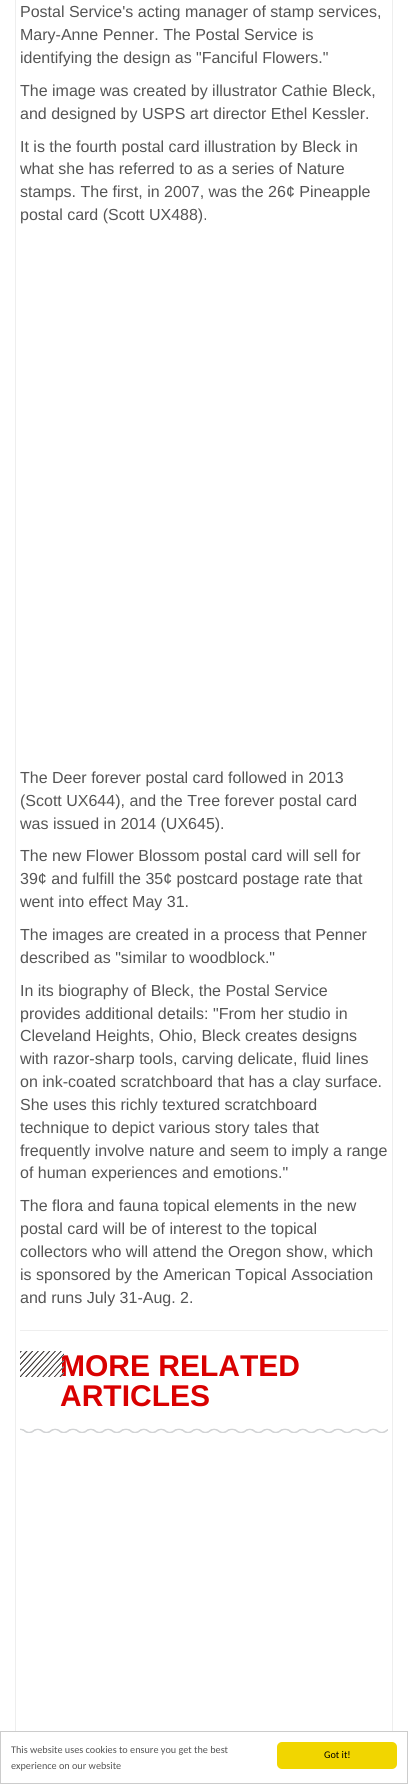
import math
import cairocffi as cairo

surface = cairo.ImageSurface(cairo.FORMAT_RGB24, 408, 1784)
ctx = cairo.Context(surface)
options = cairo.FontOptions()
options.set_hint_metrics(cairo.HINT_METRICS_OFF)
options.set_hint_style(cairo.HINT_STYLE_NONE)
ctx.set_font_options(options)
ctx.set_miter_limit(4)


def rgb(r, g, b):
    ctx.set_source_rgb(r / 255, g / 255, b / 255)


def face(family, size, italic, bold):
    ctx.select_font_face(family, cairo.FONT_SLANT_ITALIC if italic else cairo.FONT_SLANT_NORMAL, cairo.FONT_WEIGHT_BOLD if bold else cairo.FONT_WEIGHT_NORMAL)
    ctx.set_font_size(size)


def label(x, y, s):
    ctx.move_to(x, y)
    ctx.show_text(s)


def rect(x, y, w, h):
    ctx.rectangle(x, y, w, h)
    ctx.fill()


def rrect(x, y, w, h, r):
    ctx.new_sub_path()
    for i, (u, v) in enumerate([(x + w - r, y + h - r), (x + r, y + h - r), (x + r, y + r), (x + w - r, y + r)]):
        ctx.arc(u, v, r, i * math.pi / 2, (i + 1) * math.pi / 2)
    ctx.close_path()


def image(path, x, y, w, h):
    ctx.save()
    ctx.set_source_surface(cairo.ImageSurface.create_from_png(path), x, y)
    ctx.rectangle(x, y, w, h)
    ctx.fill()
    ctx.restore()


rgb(255, 255, 255)
ctx.paint()
ctx.rectangle(15.5, -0.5, 377, 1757)
rgb(238, 238, 238)
ctx.set_line_width(1)
ctx.stroke()
face('Liberation Sans', 16, 0, 0)
rgb(85, 85, 85)
label(20, 17, 'Postal Service\'s acting manager of stamp services,')
label(20, 40, 'Mary-Anne Penner. The Postal Service is')
label(20, 63, 'identifying the design as "Fanciful Flowers."')
label(20, 96, 'The image was created by illustrator Cathie Bleck,')
label(20, 119, 'and designed by USPS art director Ethel Kessler.')
label(20, 152, 'It is the fourth postal card illustration by Bleck in')
label(20, 174, 'what she has referred to as a series of Nature')
label(20, 197, 'stamps. The first, in 2007, was the 26¢ Pineapple')
label(20, 220, 'postal card (Scott UX488).')
label(20, 783, 'The Deer forever postal card followed in 2013')
label(20, 806, '(Scott UX644), and the Tree forever postal card')
label(20, 829, 'was issued in 2014 (UX645).')
label(20, 861, 'The new Flower Blossom postal card will sell for')
label(20, 884, '39¢ and fulfill the 35¢ postcard postage rate that')
label(20, 907, 'went into effect May 31.')
label(20, 940, 'The images are created in a process that Penner')
label(20, 963, 'described as "similar to woodblock."')
label(20, 996, 'In its biography of Bleck, the Postal Service')
label(20, 1019, 'provides additional details: "From her studio in')
label(20, 1041, 'Cleveland Heights, Ohio, Bleck creates designs')
label(20, 1064, 'with razor-sharp tools, carving delicate, fluid lines')
label(20, 1087, 'on ink-coated scratchboard that has a clay surface.')
label(20, 1110, 'She uses this richly textured scratchboard')
label(20, 1133, 'technique to depict various story tales that')
label(20, 1156, 'frequently involve nature and seem to imply a range')
label(20, 1178, 'of human experiences and emotions."')
label(20, 1211, 'The flora and fauna topical elements in the new')
label(20, 1234, 'postal card will be of interest to the topical')
label(20, 1257, 'collectors who will attend the Oregon show, which')
label(20, 1280, 'is sponsored by the American Topical Association')
label(20, 1303, 'and runs July 31-Aug. 2.')
rgb(238, 238, 238)
rect(20, 1330, 368, 1)
face('Liberation Sans', 30, 0, 1)
rgb(217, 0, 0)
label(60, 1376, 'MORE RELATED')
image('image0.png', 20, 1351, 44, 26)
label(60, 1406, 'ARTICLES')
image('image1.png', 20, 1428, 368, 5)
rgb(255, 255, 255)
rect(15, 1732, 378, 25)
ctx.rectangle(0.5, 1731.5, 407, 52)
rgb(204, 204, 204)
ctx.stroke()
face('Carlito', 10.2, 0, 0)
rgb(85, 85, 85)
label(11, 1753, 'This website uses cookies to ensure you get the best')
label(11, 1769, 'experience on our website')
rgb(241, 214, 0)
rrect(277, 1742, 120, 27, 5)
ctx.fill()
rgb(0, 0, 0)
label(324, 1758, 'Got it!')
surface.write_to_png('render.png')
